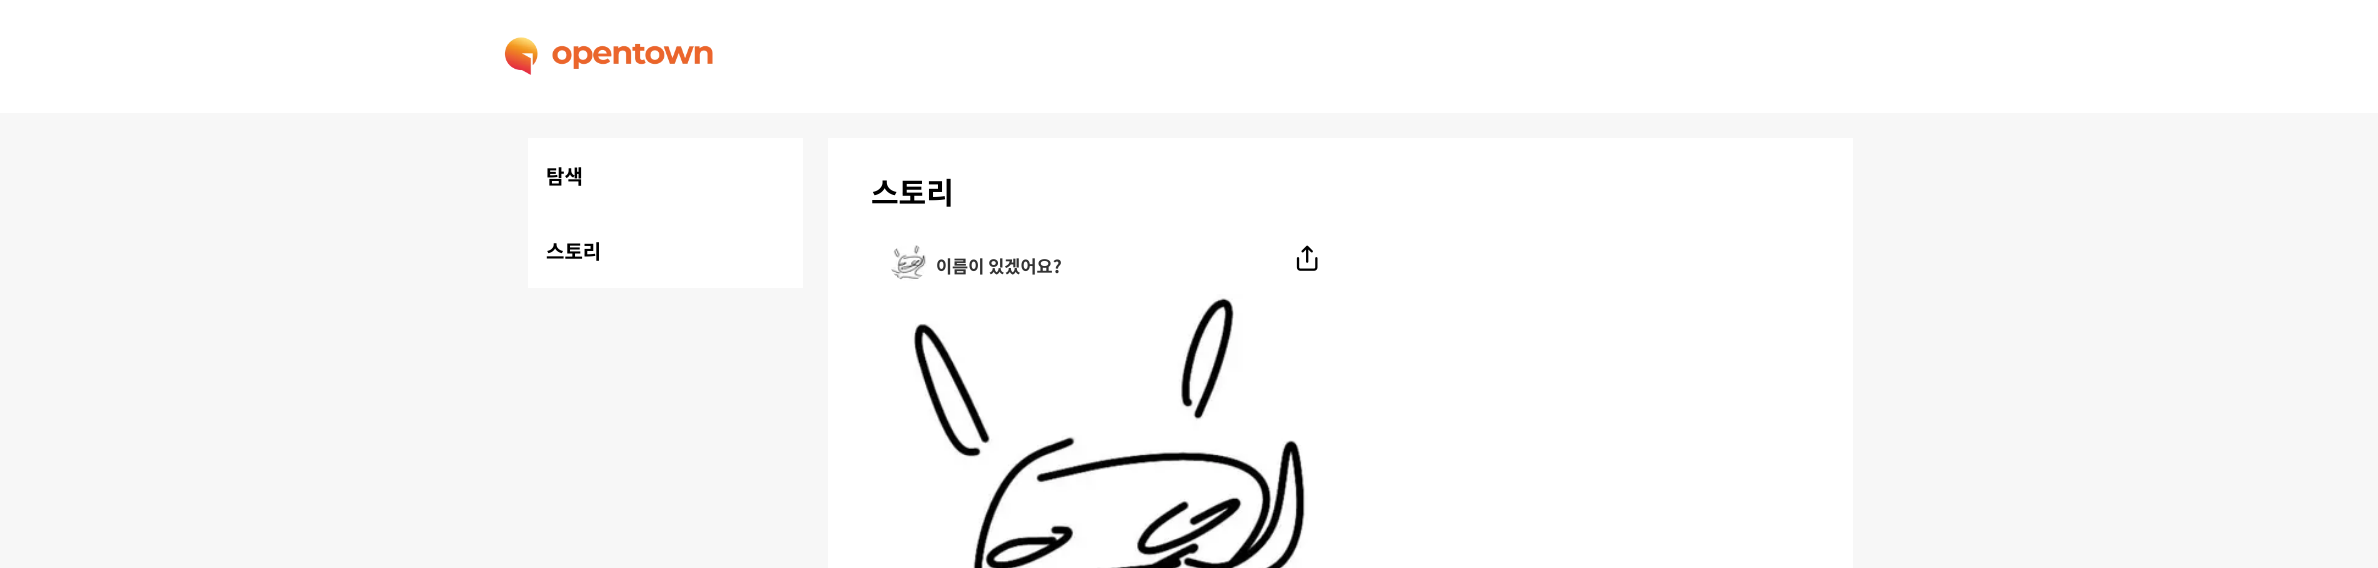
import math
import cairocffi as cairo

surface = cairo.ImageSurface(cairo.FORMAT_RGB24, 2378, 568)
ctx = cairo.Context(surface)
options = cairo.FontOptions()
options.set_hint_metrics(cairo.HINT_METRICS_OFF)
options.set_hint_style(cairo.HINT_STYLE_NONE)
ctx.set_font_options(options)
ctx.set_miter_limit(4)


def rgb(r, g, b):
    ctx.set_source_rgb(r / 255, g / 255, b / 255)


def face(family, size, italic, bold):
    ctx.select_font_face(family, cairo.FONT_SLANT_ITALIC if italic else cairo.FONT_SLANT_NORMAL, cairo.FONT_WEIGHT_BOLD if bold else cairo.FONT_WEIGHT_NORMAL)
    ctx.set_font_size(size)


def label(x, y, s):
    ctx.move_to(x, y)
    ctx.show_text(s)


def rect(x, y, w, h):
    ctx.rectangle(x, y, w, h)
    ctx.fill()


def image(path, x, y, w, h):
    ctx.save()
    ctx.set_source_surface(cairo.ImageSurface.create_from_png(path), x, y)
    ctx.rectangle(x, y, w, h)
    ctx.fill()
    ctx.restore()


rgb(247, 247, 247)
ctx.paint()
rgb(255, 255, 255)
rect(0, 0, 2378, 113)
image('image0.png', 504, 37, 209, 38)
rect(528, 138, 275, 150)
face('Noto Sans KR', 20, 0, 1)
rgb(0, 0, 0)
label(546, 184, '탐색')
label(546, 259, '스토리')
rgb(255, 255, 255)
rect(828, 138, 1025, 430)
face('Noto Sans KR', 30, 0, 1)
rgb(0, 0, 0)
label(871, 204, '스토리')
image('image1.png', 891, 245, 36, 36)
face('Noto Sans KR', 17.5, 0, 1)
rgb(51, 51, 51)
label(936, 273, '이름이 있겠어요?')
image('image2.png', 1296, 245, 22, 26)
image('image3.png', 911, 294, 397, 274)
surface.write_to_png('render.png')
